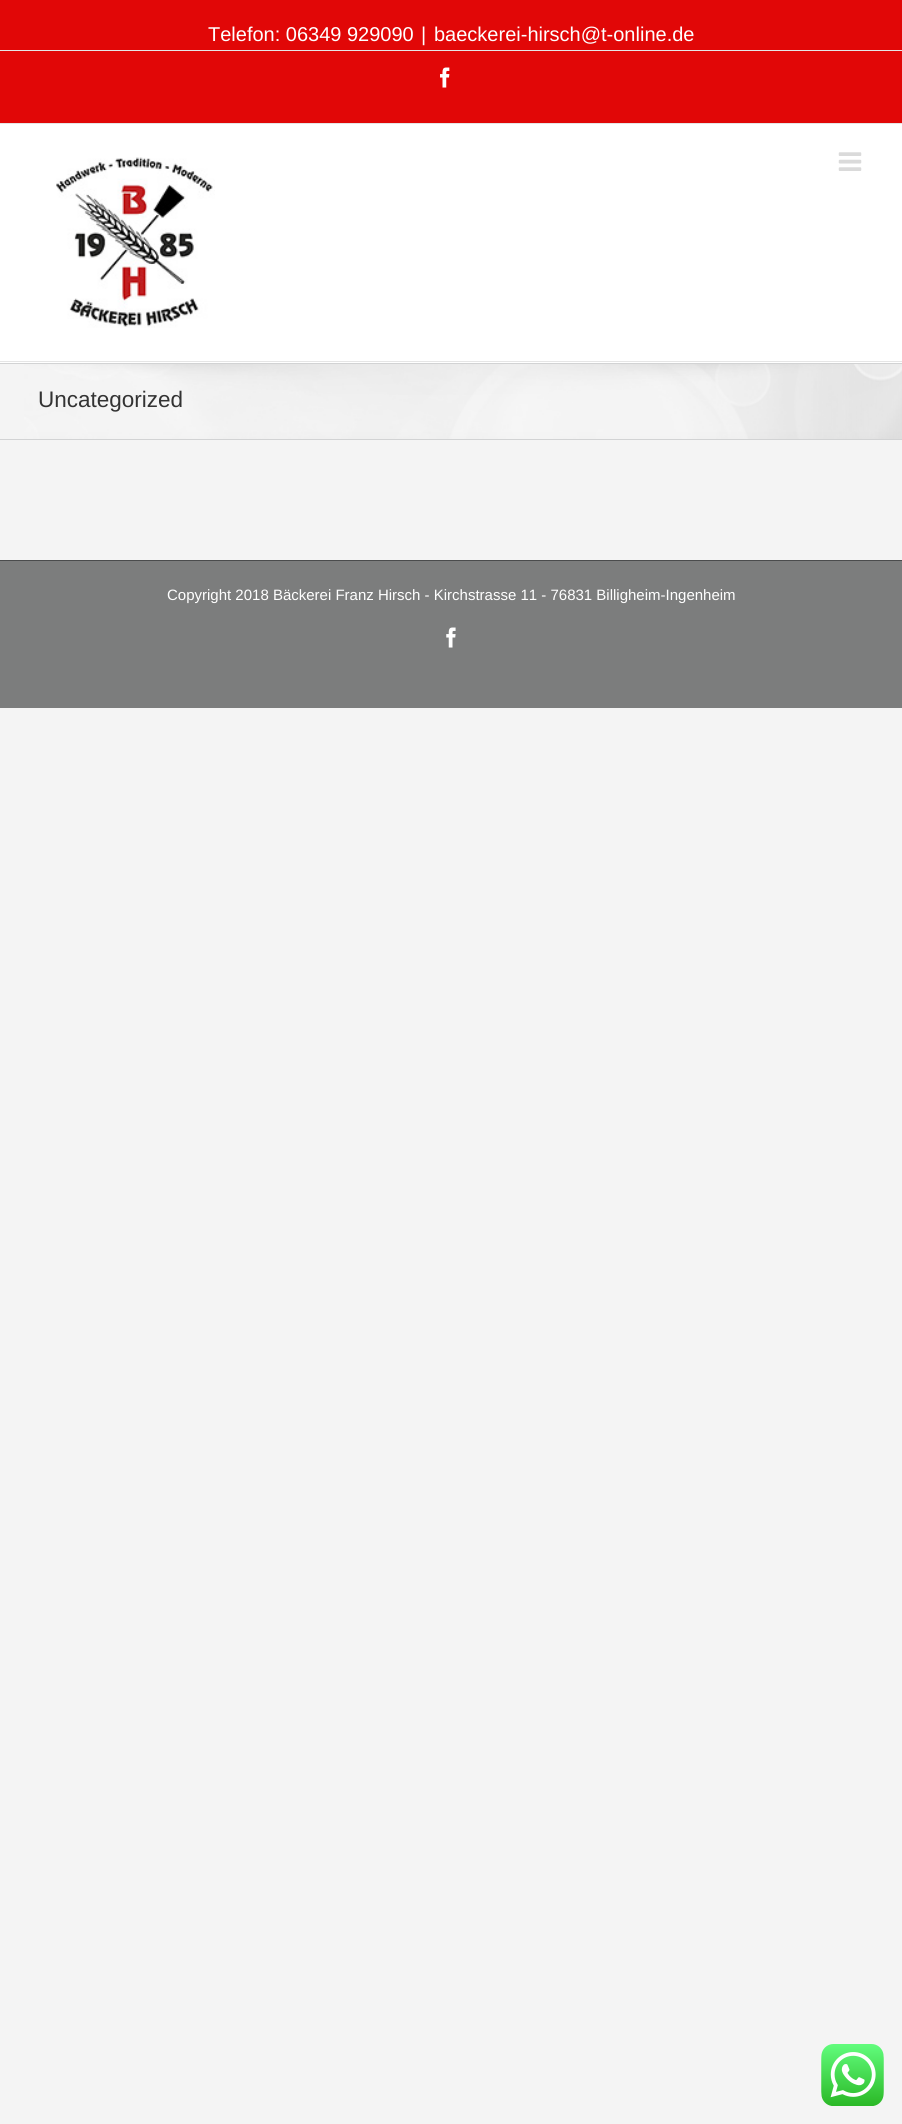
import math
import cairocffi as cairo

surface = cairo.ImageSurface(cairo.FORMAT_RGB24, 902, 2124)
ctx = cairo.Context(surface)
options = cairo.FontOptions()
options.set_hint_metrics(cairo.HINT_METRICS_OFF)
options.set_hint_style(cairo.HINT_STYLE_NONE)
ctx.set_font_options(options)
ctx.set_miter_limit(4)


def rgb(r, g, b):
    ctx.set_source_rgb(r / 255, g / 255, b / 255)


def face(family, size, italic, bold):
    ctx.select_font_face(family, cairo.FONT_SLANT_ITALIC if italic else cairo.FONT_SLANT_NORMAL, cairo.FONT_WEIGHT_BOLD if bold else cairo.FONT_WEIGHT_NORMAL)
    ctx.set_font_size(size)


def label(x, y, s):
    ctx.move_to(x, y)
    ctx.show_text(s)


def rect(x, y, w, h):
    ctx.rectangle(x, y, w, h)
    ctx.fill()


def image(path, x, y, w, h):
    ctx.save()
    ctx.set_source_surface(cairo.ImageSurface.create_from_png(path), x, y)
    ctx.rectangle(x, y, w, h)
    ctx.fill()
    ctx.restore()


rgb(244, 244, 244)
ctx.paint()
rgb(225, 7, 7)
rect(0, 0, 902, 123)
rgb(229, 229, 229)
rect(0, 123, 902, 1)
rect(0, 50, 902, 1)
face('Liberation Sans', 20, 0, 0)
rgb(255, 255, 255)
label(208, 41, 'Telefon: 06349 929090')
label(421, 41, '|')
label(434, 41, 'baeckerei-hirsch@t-online.de')
image('image0.png', 440, 67, 10, 21)
rect(0, 124, 902, 239)
rgb(229, 229, 229)
rect(0, 361, 902, 1)
image('image1.png', 56, 157, 159, 171)
image('image2.png', 838, 152, 24, 19)
image('image3.png', 24, 364, 878, 75)
rgb(210, 211, 212)
rect(0, 363, 902, 1)
rect(0, 439, 902, 1)
face('Liberation Sans', 22.5, 0, 0)
rgb(51, 51, 51)
label(38, 407, 'Uncategorized')
rgb(124, 125, 125)
rect(0, 561, 902, 147)
rgb(75, 76, 77)
rect(0, 560, 902, 1)
face('Liberation Sans', 15, 0, 0)
rgb(255, 255, 255)
label(167, 600, 'Copyright 2018 Bäckerei Franz Hirsch - Kirchstrasse 11 - 76831 Billigheim-Ingenheim')
image('image4.png', 446, 627, 10, 21)
image('image5.png', 821, 2044, 63, 62)
surface.write_to_png('render.png')
